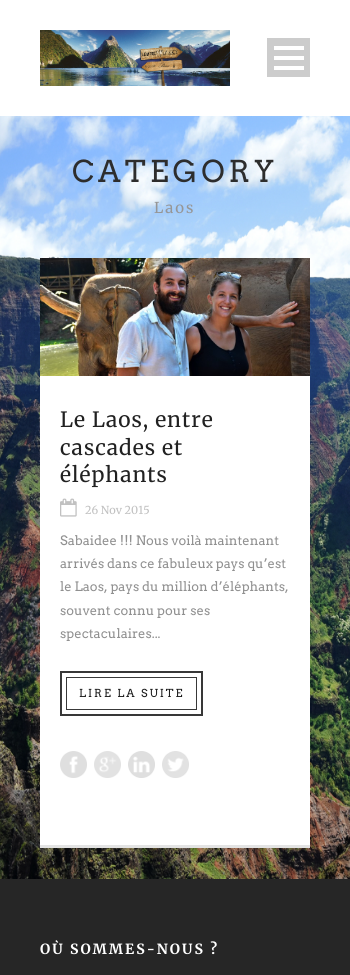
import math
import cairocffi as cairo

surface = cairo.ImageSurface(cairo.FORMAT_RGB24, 350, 975)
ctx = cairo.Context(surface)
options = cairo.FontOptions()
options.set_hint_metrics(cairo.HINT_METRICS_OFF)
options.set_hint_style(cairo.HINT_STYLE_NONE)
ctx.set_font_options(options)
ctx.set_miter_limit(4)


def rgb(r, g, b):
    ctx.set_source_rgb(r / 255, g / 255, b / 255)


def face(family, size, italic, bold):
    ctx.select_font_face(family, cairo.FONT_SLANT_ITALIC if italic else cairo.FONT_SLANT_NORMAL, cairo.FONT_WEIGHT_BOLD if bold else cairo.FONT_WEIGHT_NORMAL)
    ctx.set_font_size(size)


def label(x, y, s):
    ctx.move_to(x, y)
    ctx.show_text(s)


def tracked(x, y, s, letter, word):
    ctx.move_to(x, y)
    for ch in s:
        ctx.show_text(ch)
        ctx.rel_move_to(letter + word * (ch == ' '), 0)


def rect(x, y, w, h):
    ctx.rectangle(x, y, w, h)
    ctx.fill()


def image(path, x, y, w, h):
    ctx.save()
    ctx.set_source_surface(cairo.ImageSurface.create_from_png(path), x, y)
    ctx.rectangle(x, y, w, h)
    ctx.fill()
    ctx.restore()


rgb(255, 255, 255)
ctx.paint()
image('image0.png', 40, 30, 190, 56)
rgb(204, 204, 204)
rect(267, 38, 43, 39)
rgb(255, 255, 255)
rect(274, 66, 30, 4)
rect(274, 56, 30, 4)
rect(274, 46, 30, 4)
image('image1.png', 0, 116, 350, 763)
face('Arvo', 30, 0, 0)
rgb(45, 45, 45)
tracked(72, 182, 'CATEGORY', 4, 0)
face('Merriweather', 15, 0, 0)
rgb(150, 150, 150)
tracked(154, 213, 'Laos', 2, 0)
rgb(255, 255, 255)
rect(40, 376, 270, 469)
rgb(227, 227, 227)
rect(40, 845, 270, 3)
image('image2.png', 40, 258, 270, 118)
face('Merriweather', 21, 0, 0)
rgb(33, 33, 33)
tracked(60, 427, 'Le Laos, entre', 1, 0)
tracked(60, 455, 'cascades et', 1, 0)
tracked(60, 482, 'éléphants', 1, 0)
image('image3.png', 60, 498, 17, 19)
face('Merriweather', 11, 0, 0)
rgb(193, 193, 193)
label(85, 514, '26 Nov 2015')
face('Arvo', 13, 0, 0)
rgb(144, 144, 144)
label(60, 545, 'Sabaidee !!! Nous voilà maintenant')
label(60, 568, 'arrivés dans ce fabuleux pays qu’est')
label(60, 591, 'le Laos, pays du million d’éléphants,')
label(60, 615, 'souvent connu pour ses')
label(60, 638, 'spectaculaires...')
ctx.rectangle(61, 672, 141, 43)
rgb(56, 56, 56)
ctx.stroke()
ctx.rectangle(66.5, 677.5, 130, 32)
ctx.set_line_width(1)
ctx.stroke()
face('Arvo', 11, 0, 0)
rgb(27, 27, 27)
tracked(79, 697, 'LIRE LA SUITE', 2, 0)
image('image4.png', 60, 751, 27, 27)
image('image5.png', 94, 751, 27, 27)
image('image6.png', 128, 751, 27, 27)
image('image7.png', 162, 751, 27, 27)
rgb(38, 38, 38)
rect(0, 879, 350, 96)
face('Merriweather', 14, 0, 1)
rgb(255, 255, 255)
tracked(40, 954, 'OÙ SOMMES-NOUS ?', 2, 0)
surface.write_to_png('render.png')
